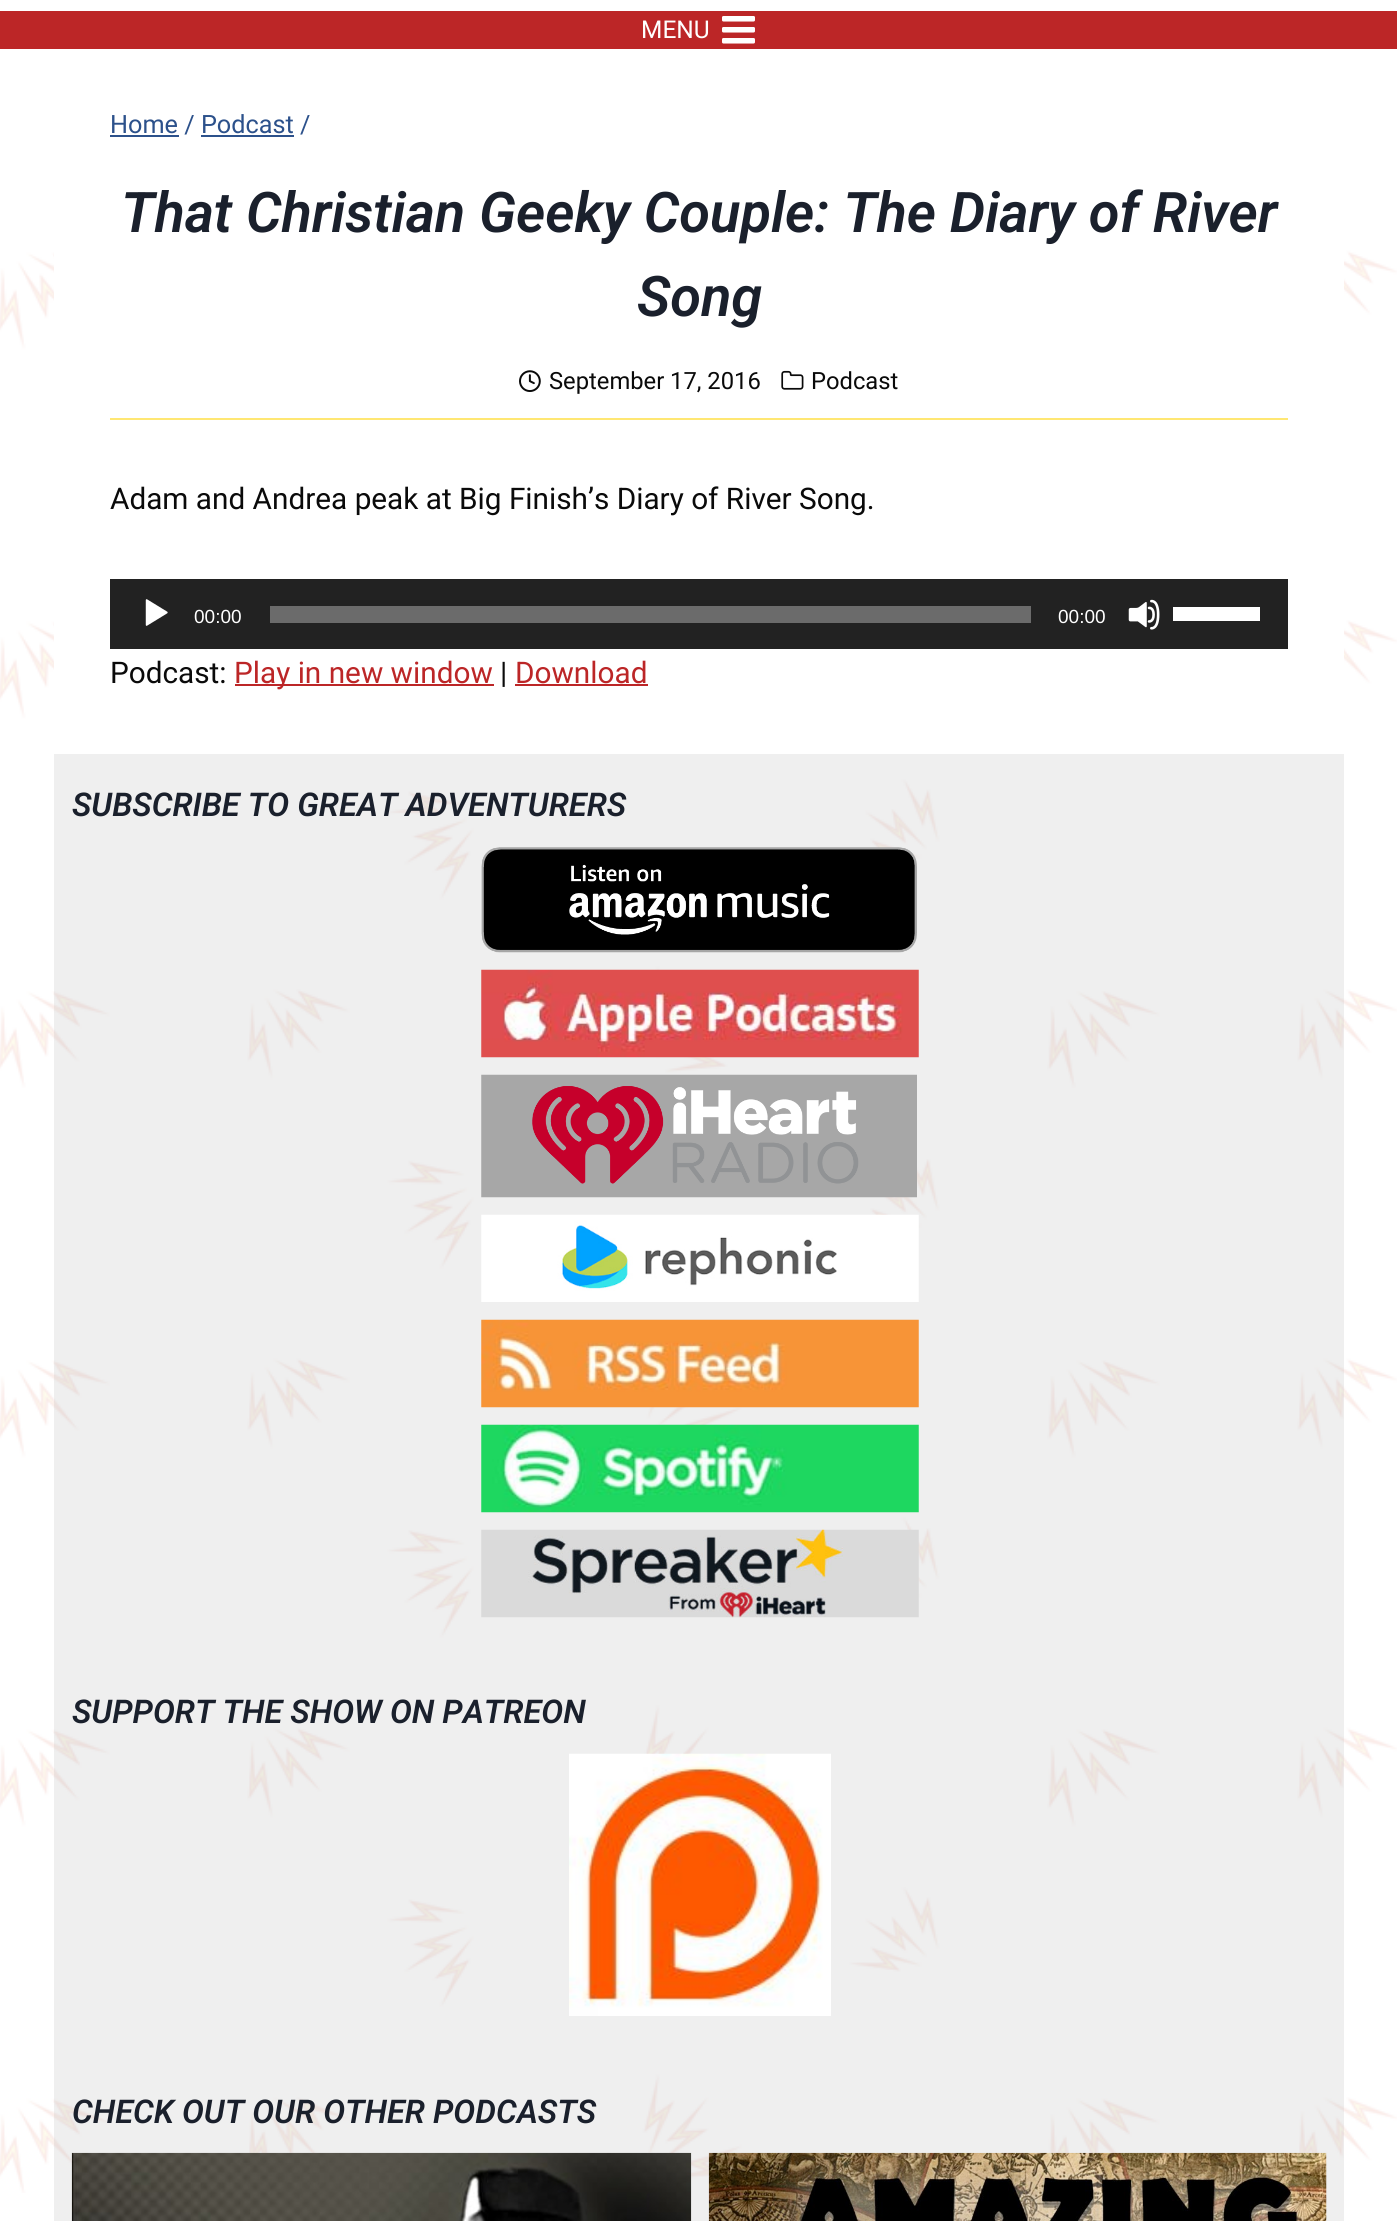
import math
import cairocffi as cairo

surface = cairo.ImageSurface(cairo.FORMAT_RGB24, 1397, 2221)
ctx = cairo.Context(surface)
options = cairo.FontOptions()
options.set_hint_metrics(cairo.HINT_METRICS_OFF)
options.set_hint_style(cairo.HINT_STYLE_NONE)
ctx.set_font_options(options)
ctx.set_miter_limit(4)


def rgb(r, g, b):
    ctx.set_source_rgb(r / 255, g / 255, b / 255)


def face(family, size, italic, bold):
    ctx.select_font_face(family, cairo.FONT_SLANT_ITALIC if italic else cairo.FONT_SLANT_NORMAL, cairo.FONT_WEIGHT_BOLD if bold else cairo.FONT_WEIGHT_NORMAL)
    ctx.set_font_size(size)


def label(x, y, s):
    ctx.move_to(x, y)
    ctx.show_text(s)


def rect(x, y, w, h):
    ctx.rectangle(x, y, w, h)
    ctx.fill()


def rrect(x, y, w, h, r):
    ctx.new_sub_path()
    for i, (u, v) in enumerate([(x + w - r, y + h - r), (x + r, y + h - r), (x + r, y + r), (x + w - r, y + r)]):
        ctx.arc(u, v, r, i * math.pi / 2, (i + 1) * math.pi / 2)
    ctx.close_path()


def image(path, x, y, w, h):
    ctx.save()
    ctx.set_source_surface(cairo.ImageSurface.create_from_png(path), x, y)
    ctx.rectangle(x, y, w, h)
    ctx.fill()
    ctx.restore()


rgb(255, 255, 255)
ctx.paint()
image('image0.png', 0, 49, 1397, 2144)
rgb(188, 38, 39)
rect(0, 11, 1397, 38)
face('Roboto', 24.5, 0, 0)
rgb(255, 255, 255)
label(641, 38, 'MENU')
image('image1.png', 722, 16, 33, 28)
rrect(54, 49, 1290, 705, 70)
ctx.fill()
face('Roboto', 25.25, 0, 0)
rgb(44, 81, 139)
label(110, 133, 'Home / Podcast /')
rect(110, 135, 69, 2)
rect(201, 135, 93, 2)
face('Roboto SemiBold', 56, 1, 0)
rgb(26, 32, 44)
label(121, 232, 'That Christian Geeky Couple: The Diary of River')
label(637, 316, 'Song')
rgb(255, 231, 115)
rect(110, 418, 1178, 2)
image('image2.png', 519, 370, 22, 22)
face('Roboto', 23.75, 0, 0)
rgb(10, 10, 10)
label(549, 389, 'September 17, 2016')
image('image3.png', 781, 370, 23, 20)
label(811, 389, 'Podcast')
face('Roboto', 29.75, 0, 0)
label(110, 509, 'Adam and Andrea peak at Big Finish’s Diary of River Song.')
rgb(34, 34, 34)
rect(110, 579, 1178, 70)
image('image4.png', 145, 599, 23, 27)
face('Liberation Sans', 19, 0, 0)
rgb(255, 255, 255)
label(194, 623, '00:00')
rgb(107, 107, 107)
rect(270, 606, 761, 17)
rgb(255, 255, 255)
label(1058, 623, '00:00')
image('image5.png', 1128, 599, 32, 31)
rect(1173, 607, 87, 14)
face('Roboto', 29.75, 0, 0)
rgb(10, 10, 10)
label(110, 683, 'Podcast:')
rgb(188, 38, 39)
rect(235, 684, 259, 2)
label(234, 683, 'Play in new window')
rgb(10, 10, 10)
label(500, 683, '|')
rgb(188, 38, 39)
label(515, 683, 'Download')
rect(515, 684, 133, 2)
ctx.set_source_rgba(0.659, 0.659, 0.659, 0.18)
rect(54, 754, 1290, 1467)
face('Roboto SemiBold', 32.7, 1, 0)
rgb(26, 32, 44)
label(72, 816, 'SUBSCRIBE TO GREAT ADVENTURERS')
image('image6.png', 481, 847, 436, 106)
image('image7.png', 481, 969, 438, 89)
image('image8.png', 481, 1074, 436, 124)
image('image9.png', 481, 1214, 438, 88)
image('image10.png', 481, 1319, 438, 89)
image('image11.png', 481, 1424, 438, 89)
image('image12.png', 481, 1529, 438, 89)
label(72, 1723, 'SUPPORT THE SHOW ON PATREON')
image('image13.png', 569, 1753, 262, 263)
label(72, 2123, 'CHECK OUT OUR OTHER PODCASTS')
image('image14.png', 71, 2152, 621, 69)
image('image15.png', 708, 2152, 619, 69)
surface.write_to_png('render.png')
